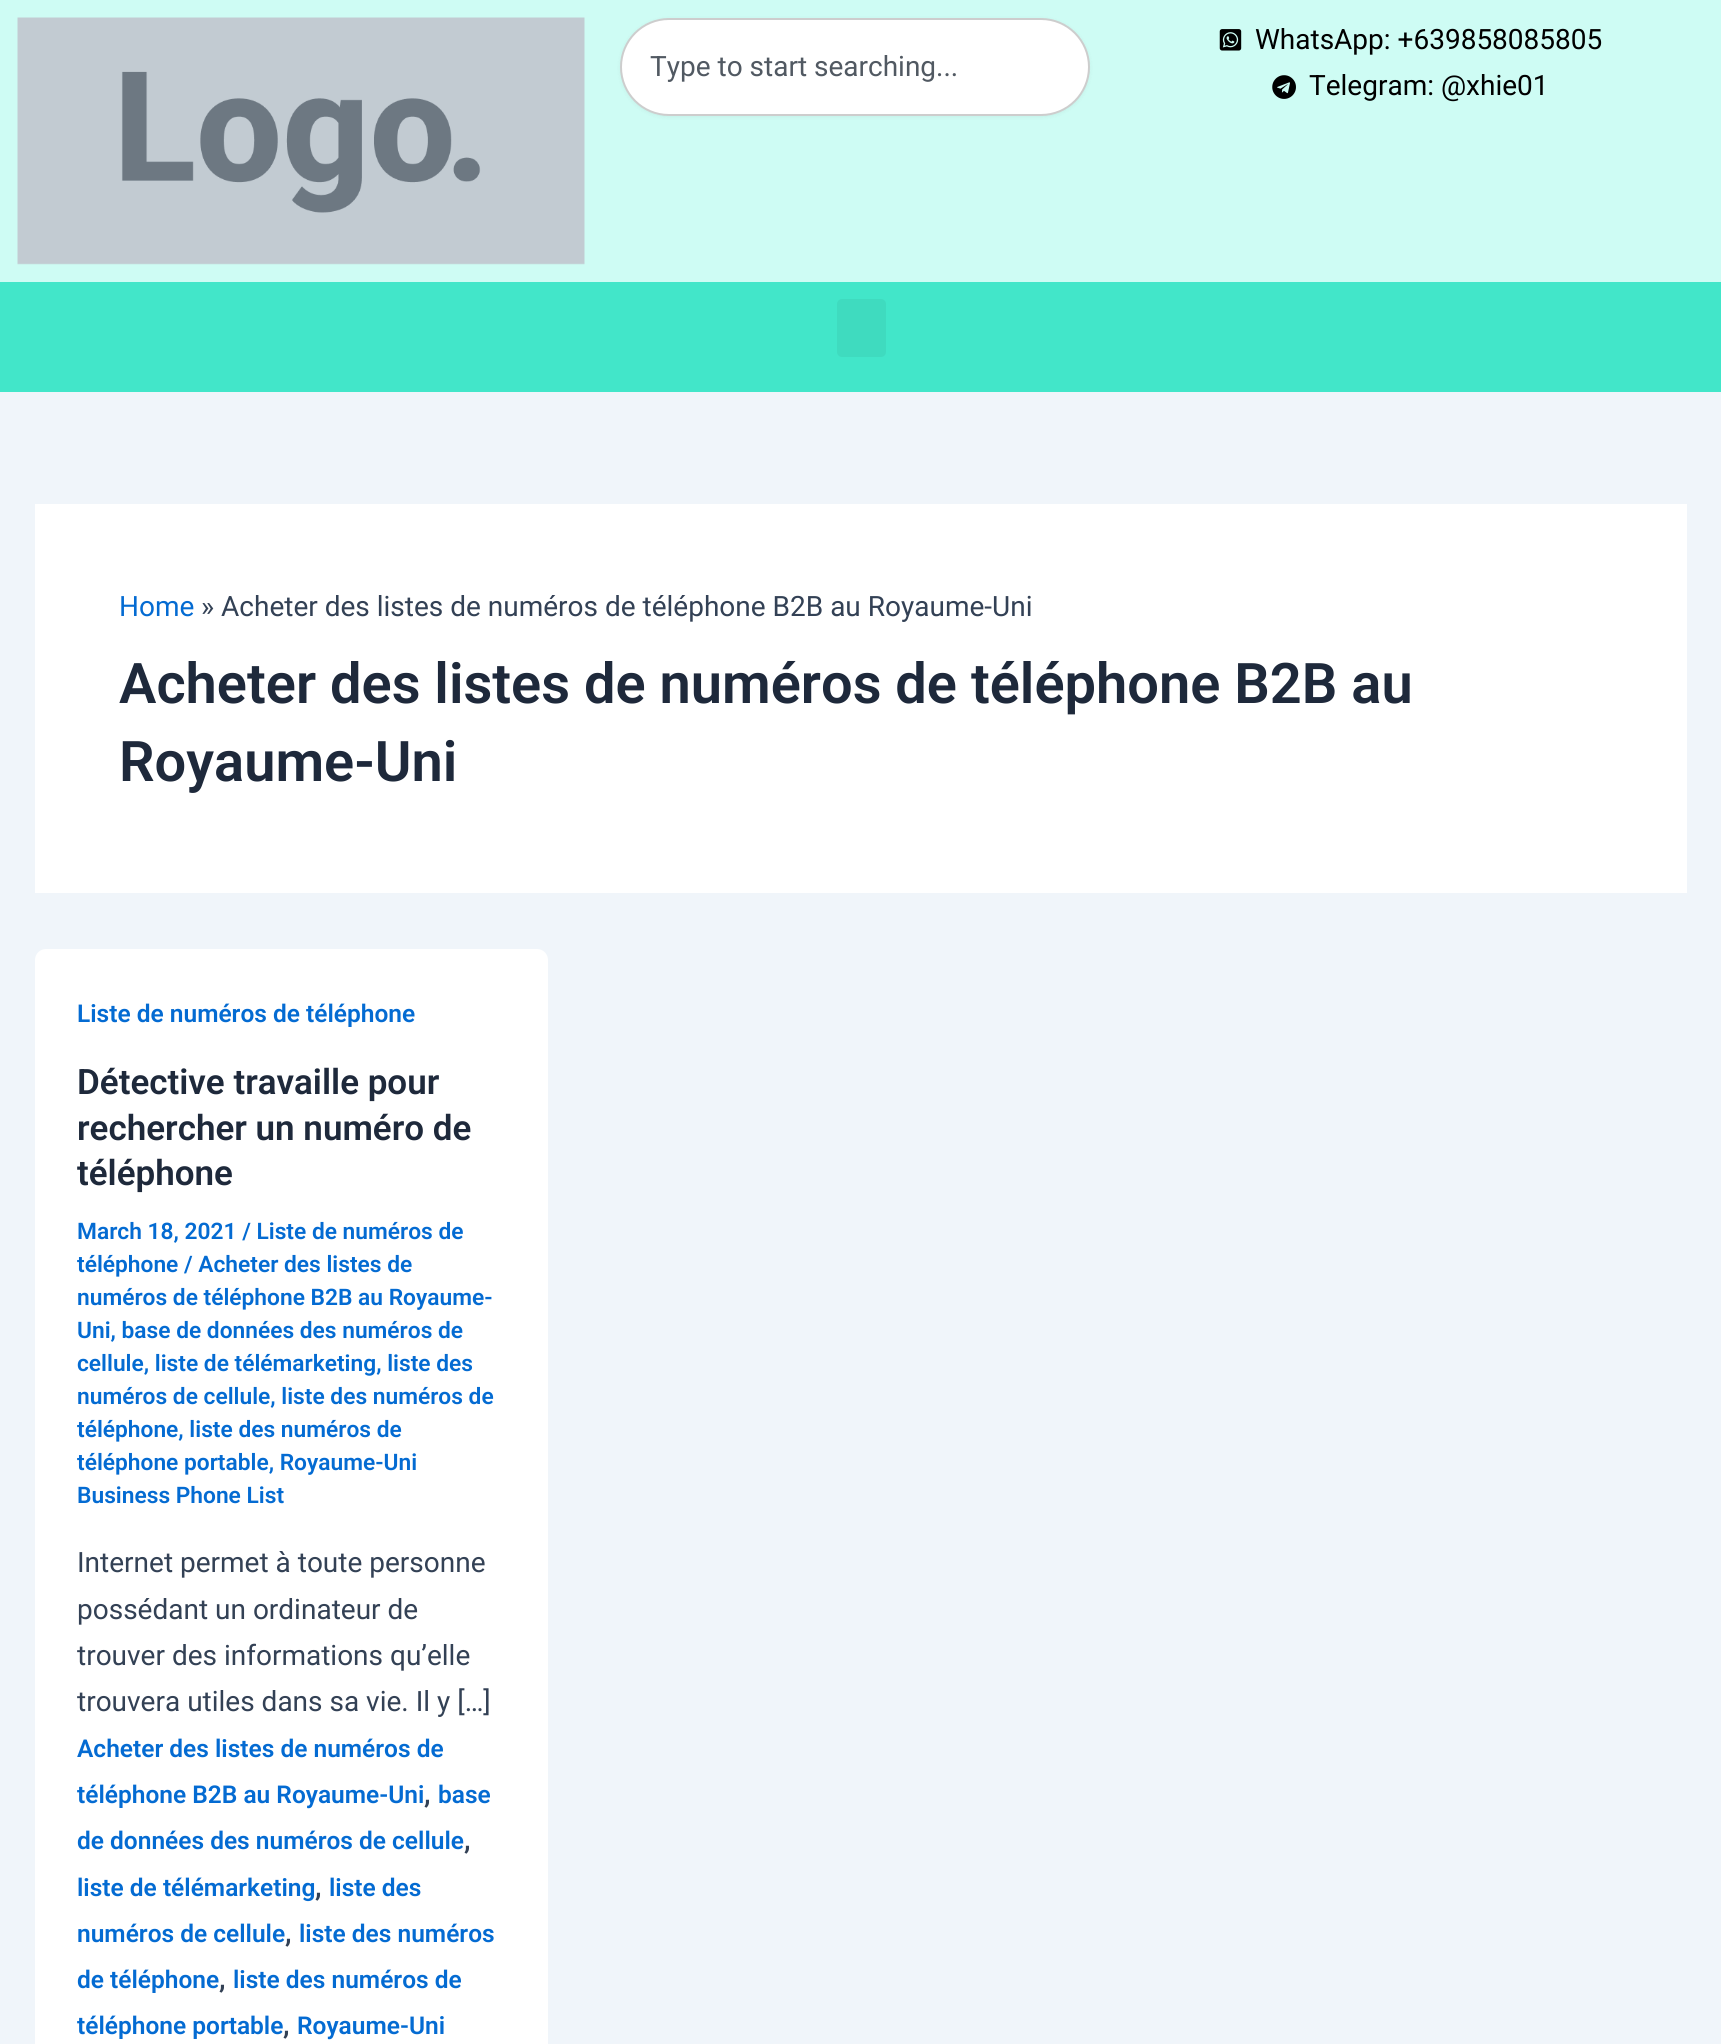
import math
import cairocffi as cairo

surface = cairo.ImageSurface(cairo.FORMAT_RGB24, 1721, 2044)
ctx = cairo.Context(surface)
options = cairo.FontOptions()
options.set_hint_metrics(cairo.HINT_METRICS_OFF)
options.set_hint_style(cairo.HINT_STYLE_NONE)
ctx.set_font_options(options)
ctx.set_miter_limit(4)


def rgb(r, g, b):
    ctx.set_source_rgb(r / 255, g / 255, b / 255)


def face(family, size, italic, bold):
    ctx.select_font_face(family, cairo.FONT_SLANT_ITALIC if italic else cairo.FONT_SLANT_NORMAL, cairo.FONT_WEIGHT_BOLD if bold else cairo.FONT_WEIGHT_NORMAL)
    ctx.set_font_size(size)


def label(x, y, s):
    ctx.move_to(x, y)
    ctx.show_text(s)


def rect(x, y, w, h):
    ctx.rectangle(x, y, w, h)
    ctx.fill()


def rrect(x, y, w, h, r):
    ctx.new_sub_path()
    for i, (u, v) in enumerate([(x + w - r, y + h - r), (x + r, y + h - r), (x + r, y + r), (x + w - r, y + r)]):
        ctx.arc(u, v, r, i * math.pi / 2, (i + 1) * math.pi / 2)
    ctx.close_path()


def soft_shadow(x, y, w, h, r, blur, alpha):
    ctx.push_group_with_content(cairo.CONTENT_ALPHA)
    ctx.set_operator(cairo.OPERATOR_SOURCE)
    for i in range(15, -16, -2):
        e = blur * i / 6
        if min(w, h) + 2 * e > 0:
            ctx.set_source_rgba(0, 0, 0, alpha * math.erfc((i - 1) / 8.5) / 2)
            rrect(x - e, y - e, w + 2 * e, h + 2 * e, max(0, min(r + e + blur * .6, min(w, h) / 2 + e)))
            ctx.fill()
    ctx.mask(ctx.pop_group())


def image(path, x, y, w, h):
    ctx.save()
    ctx.set_source_surface(cairo.ImageSurface.create_from_png(path), x, y)
    ctx.rectangle(x, y, w, h)
    ctx.fill()
    ctx.restore()


rgb(240, 245, 250)
ctx.paint()
rgb(206, 252, 244)
rect(0, 0, 1721, 282)
image('image0.png', 17, 17, 568, 248)
rgb(0, 0, 0)
soft_shadow(620, 19, 470, 98, 49, 2, 0.05)
rgb(255, 255, 255)
rrect(621, 19, 468, 96, 48)
ctx.fill_preserve()
rgb(205, 205, 205)
ctx.stroke()
face('Roboto', 28, 0, 0)
rgb(81, 89, 98)
label(650, 76, 'Type to start searching...')
image('image1.png', 1219, 29, 23, 22)
rgb(0, 0, 0)
label(1255, 49, 'WhatsApp: +639858085805')
image('image2.png', 1272, 75, 24, 24)
label(1309, 95, 'Telegram: @xhie01')
rgb(66, 230, 201)
rect(0, 282, 1721, 110)
rgb(63, 219, 191)
rrect(837, 299, 49, 58, 5)
ctx.fill()
rgb(255, 255, 255)
rect(35, 504, 1652, 389)
rgb(4, 107, 210)
label(119, 616, 'Home')
rgb(51, 65, 85)
label(201, 616, '» Acheter des listes de numéros de téléphone B2B au Royaume-Uni')
face('Roboto SemiBold', 56, 0, 0)
rgb(30, 41, 59)
label(119, 703, 'Acheter des listes de numéros de téléphone B2B au')
label(119, 781, 'Royaume-Uni')
rgb(255, 255, 255)
rrect(35, 949, 513, 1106, 11)
ctx.fill()
face('Roboto SemiBold', 24.5, 0, 0)
rgb(4, 107, 210)
label(77, 1022, 'Liste de numéros de téléphone')
face('Roboto SemiBold', 35, 0, 0)
rgb(30, 41, 59)
label(77, 1094, 'Détective travaille pour')
label(77, 1140, 'rechercher un numéro de')
label(77, 1185, 'téléphone')
face('Roboto SemiBold', 22.75, 0, 0)
rgb(4, 107, 210)
label(77, 1239, 'March 18, 2021 / Liste de numéros de')
label(77, 1272, 'téléphone / Acheter des listes de')
label(77, 1305, 'numéros de téléphone B2B au Royaume-')
label(77, 1338, 'Uni, base de données des numéros de')
label(77, 1371, 'cellule, liste de télémarketing, liste des')
label(77, 1404, 'numéros de cellule, liste des numéros de')
label(77, 1437, 'téléphone, liste des numéros de')
label(77, 1470, 'téléphone portable, Royaume-Uni')
label(77, 1503, 'Business Phone List')
face('Roboto', 28, 0, 0)
rgb(51, 65, 85)
label(77, 1572, 'Internet permet à toute personne')
label(77, 1619, 'possédant un ordinateur de')
label(77, 1665, 'trouver des informations qu’elle')
label(77, 1711, 'trouvera utiles dans sa vie. Il y […]')
face('Roboto SemiBold', 24.5, 0, 0)
rgb(4, 107, 210)
label(77, 1757, 'Acheter des listes de numéros de')
label(77, 1803, 'téléphone B2B au Royaume-Uni')
face('Roboto SemiBold', 28, 0, 0)
rgb(51, 65, 85)
label(424, 1803, ',')
face('Roboto SemiBold', 24.5, 0, 0)
rgb(4, 107, 210)
label(438, 1803, 'base')
label(77, 1849, 'de données des numéros de cellule')
face('Roboto SemiBold', 28, 0, 0)
rgb(51, 65, 85)
label(464, 1849, ',')
face('Roboto SemiBold', 24.5, 0, 0)
rgb(4, 107, 210)
label(77, 1896, 'liste de télémarketing')
face('Roboto SemiBold', 28, 0, 0)
rgb(51, 65, 85)
label(315, 1896, ',')
face('Roboto SemiBold', 24.5, 0, 0)
rgb(4, 107, 210)
label(329, 1896, 'liste des')
label(77, 1942, 'numéros de cellule')
face('Roboto SemiBold', 28, 0, 0)
rgb(51, 65, 85)
label(285, 1942, ',')
face('Roboto SemiBold', 24.5, 0, 0)
rgb(4, 107, 210)
label(299, 1942, 'liste des numéros')
label(77, 1988, 'de téléphone')
face('Roboto SemiBold', 28, 0, 0)
rgb(51, 65, 85)
label(219, 1988, ',')
face('Roboto SemiBold', 24.5, 0, 0)
rgb(4, 107, 210)
label(233, 1988, 'liste des numéros de')
label(77, 2034, 'téléphone portable')
face('Roboto SemiBold', 28, 0, 0)
rgb(51, 65, 85)
label(283, 2034, ',')
face('Roboto SemiBold', 24.5, 0, 0)
rgb(4, 107, 210)
label(297, 2034, 'Royaume-Uni')
surface.write_to_png('render.png')
